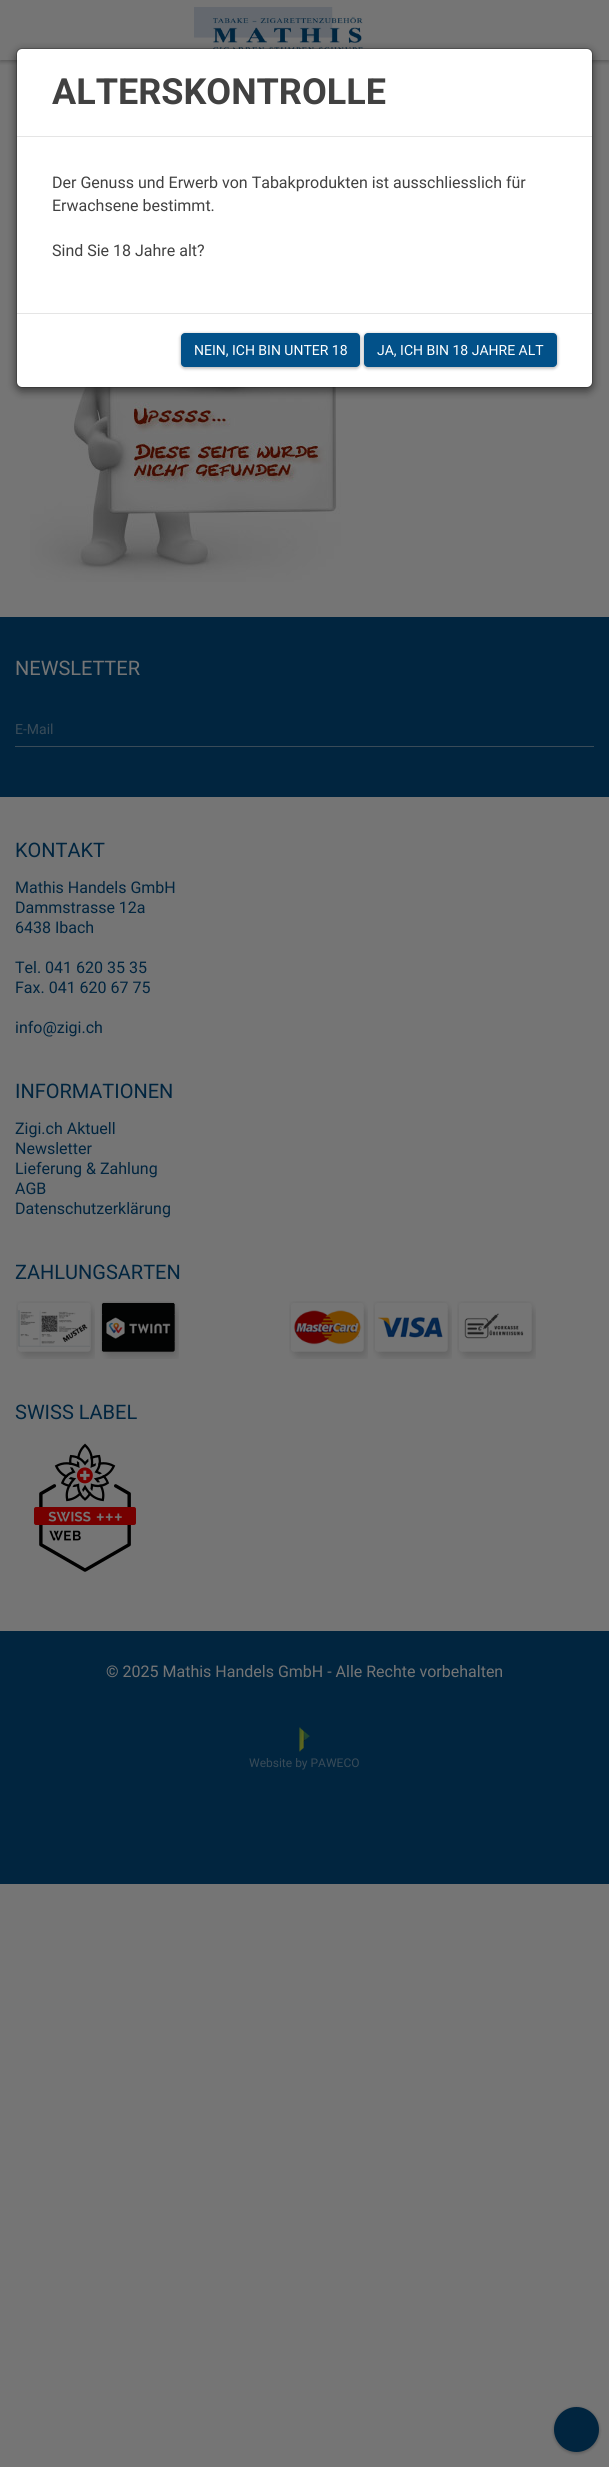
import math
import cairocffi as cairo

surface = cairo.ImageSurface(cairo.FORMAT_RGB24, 609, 2467)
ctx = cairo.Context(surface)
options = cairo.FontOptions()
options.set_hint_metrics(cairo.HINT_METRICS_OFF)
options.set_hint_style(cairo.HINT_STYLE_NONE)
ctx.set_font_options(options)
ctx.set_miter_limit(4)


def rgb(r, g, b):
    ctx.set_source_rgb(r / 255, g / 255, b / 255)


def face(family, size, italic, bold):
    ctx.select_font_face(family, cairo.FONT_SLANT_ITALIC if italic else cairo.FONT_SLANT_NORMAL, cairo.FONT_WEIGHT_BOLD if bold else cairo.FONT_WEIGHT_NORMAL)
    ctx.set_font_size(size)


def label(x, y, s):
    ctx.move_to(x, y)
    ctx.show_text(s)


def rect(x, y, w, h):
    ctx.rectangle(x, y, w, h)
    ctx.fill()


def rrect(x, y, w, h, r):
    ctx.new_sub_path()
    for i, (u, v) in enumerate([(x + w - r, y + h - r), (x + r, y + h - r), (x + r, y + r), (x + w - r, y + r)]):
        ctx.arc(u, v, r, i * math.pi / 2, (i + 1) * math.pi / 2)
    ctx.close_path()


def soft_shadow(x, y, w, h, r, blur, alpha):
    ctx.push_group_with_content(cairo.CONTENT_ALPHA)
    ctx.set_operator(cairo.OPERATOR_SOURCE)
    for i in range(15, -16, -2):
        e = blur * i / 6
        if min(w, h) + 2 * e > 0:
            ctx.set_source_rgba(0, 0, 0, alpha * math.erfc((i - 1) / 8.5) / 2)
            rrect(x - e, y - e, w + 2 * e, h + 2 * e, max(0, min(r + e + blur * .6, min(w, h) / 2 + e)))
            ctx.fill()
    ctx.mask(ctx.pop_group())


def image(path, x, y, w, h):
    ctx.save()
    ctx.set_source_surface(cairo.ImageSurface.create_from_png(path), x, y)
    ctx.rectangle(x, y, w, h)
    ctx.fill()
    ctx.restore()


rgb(117, 117, 117)
ctx.paint()
ctx.save()
ctx.rectangle(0, 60, 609, 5)
ctx.clip()
rgb(0, 0, 0)
soft_shadow(0, 2, 609, 60, 0, 2, 0.24)
ctx.restore()
image('image0.png', 194, 7, 169, 42)
image('image1.png', 30, 387, 311, 195)
rgb(0, 0, 0)
soft_shadow(16, 51, 577, 340, 6, 4.5, 0.5)
rgb(255, 255, 255)
rrect(17, 49, 575, 338, 5)
ctx.fill()
rrect(16.5, 48.5, 576, 339, 5.5)
ctx.set_source_rgba(0, 0, 0, 0.2)
ctx.set_line_width(1)
ctx.stroke()
rgb(229, 229, 229)
rect(17, 136, 575, 1)
face('Roboto', 36, 0, 1)
rgb(65, 65, 65)
label(52, 104, 'ALTERSKONTROLLE')
face('Roboto', 16, 0, 0)
label(52, 188, 'Der Genuss und Erwerb von Tabakprodukten ist ausschliesslich für')
label(52, 211, 'Erwachsene bestimmt.')
label(52, 256, 'Sind Sie 18 Jahre alt?')
rgb(229, 229, 229)
rect(17, 313, 575, 1)
rgb(0, 0, 0)
soft_shadow(180, 333, 181, 36, 5, 1.5, 0.15)
soft_shadow(181, 334, 179, 34, 4, 1.5, 0.15)
rgb(2, 81, 137)
rrect(181, 333, 179, 34, 4)
ctx.fill()
face('Roboto', 14, 0, 0)
rgb(255, 255, 255)
label(194, 355, 'NEIN, ICH BIN UNTER 18')
rgb(0, 0, 0)
soft_shadow(363, 333, 195, 36, 5, 1.5, 0.15)
soft_shadow(364, 334, 193, 34, 4, 1.5, 0.15)
rgb(2, 81, 137)
rrect(364, 333, 193, 34, 4)
ctx.fill()
rgb(255, 255, 255)
label(377, 355, 'JA, ICH BIN 18 JAHRE ALT')
rgb(1, 37, 63)
rect(0, 617, 609, 180)
face('Roboto', 20, 0, 0)
rgb(117, 117, 117)
label(15, 675, 'NEWSLETTER')
face('Roboto', 14, 0, 0)
rgb(57, 75, 88)
label(15, 734, 'E-Mail')
rect(15, 746, 579, 1)
face('Roboto', 20, 0, 0)
rgb(1, 37, 63)
label(15, 857, 'KONTAKT')
face('Roboto', 16, 0, 0)
label(15, 893, 'Mathis Handels GmbH')
label(15, 913, 'Dammstrasse 12a')
label(15, 933, '6438 Ibach')
label(15, 973, 'Tel. 041 620 35 35')
label(15, 993, 'Fax. 041 620 67 75')
label(15, 1033, 'info@zigi.ch')
face('Roboto', 20, 0, 0)
label(15, 1098, 'INFORMATIONEN')
face('Roboto', 16, 0, 0)
label(15, 1134, 'Zigi.ch Aktuell')
label(15, 1154, 'Newsletter')
label(15, 1174, 'Lieferung & Zahlung')
label(15, 1194, 'AGB')
label(15, 1214, 'Datenschutzerklärung')
face('Roboto', 20, 0, 0)
label(15, 1279, 'ZAHLUNGSARTEN')
image('image2.png', 16, 1301, 79, 58)
image('image3.png', 100, 1301, 79, 58)
image('image4.png', 289, 1301, 79, 58)
image('image5.png', 373, 1301, 79, 58)
image('image6.png', 457, 1301, 79, 58)
label(15, 1419, 'SWISS LABEL')
image('image7.png', 34, 1443, 102, 129)
rect(0, 1631, 609, 253)
face('Roboto', 16, 0, 0)
rgb(117, 117, 117)
label(106, 1677, '© 2025 Mathis Handels GmbH - Alle Rechte vorbehalten')
image('image8.png', 299, 1727, 11, 25)
face('Roboto', 12, 0, 0)
rgb(57, 75, 88)
label(249, 1767, 'Website by PAWECO')
rgb(0, 0, 0)
soft_shadow(553, 2407, 47, 47, 23.5, 1.5, 0.1)
soft_shadow(554, 2408, 45, 45, 22.5, 1.5, 0.15)
rgb(1, 37, 63)
ctx.arc(576.5, 2429.5, 22.5, 0, 2 * math.pi)
ctx.fill()
surface.write_to_png('render.png')
